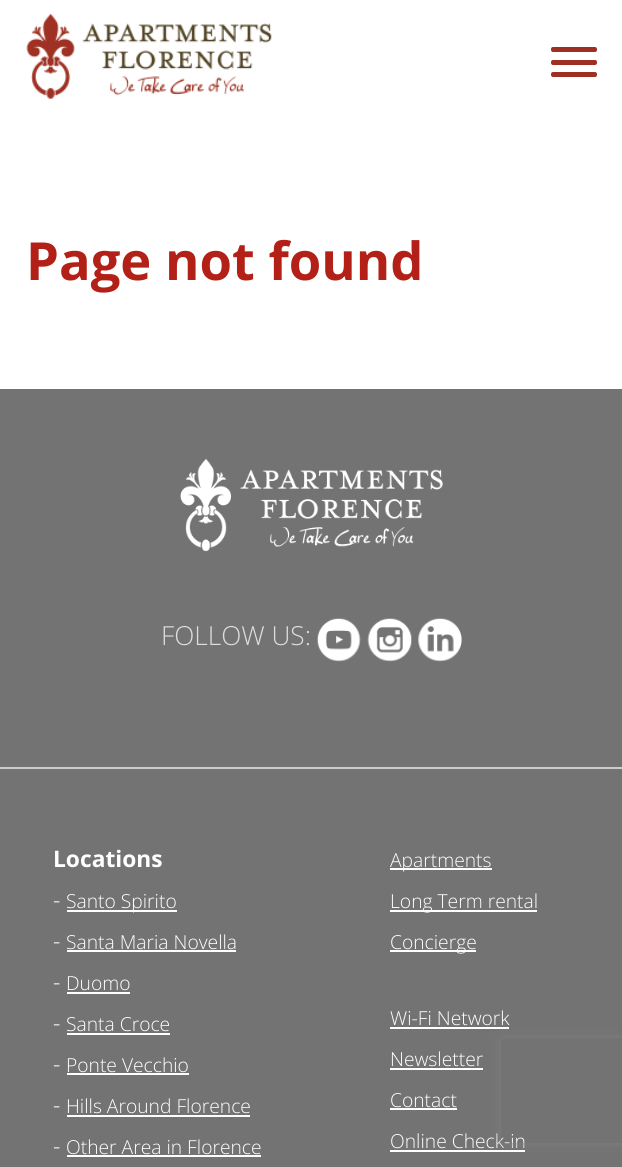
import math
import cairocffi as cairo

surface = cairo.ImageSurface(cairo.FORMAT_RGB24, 622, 1167)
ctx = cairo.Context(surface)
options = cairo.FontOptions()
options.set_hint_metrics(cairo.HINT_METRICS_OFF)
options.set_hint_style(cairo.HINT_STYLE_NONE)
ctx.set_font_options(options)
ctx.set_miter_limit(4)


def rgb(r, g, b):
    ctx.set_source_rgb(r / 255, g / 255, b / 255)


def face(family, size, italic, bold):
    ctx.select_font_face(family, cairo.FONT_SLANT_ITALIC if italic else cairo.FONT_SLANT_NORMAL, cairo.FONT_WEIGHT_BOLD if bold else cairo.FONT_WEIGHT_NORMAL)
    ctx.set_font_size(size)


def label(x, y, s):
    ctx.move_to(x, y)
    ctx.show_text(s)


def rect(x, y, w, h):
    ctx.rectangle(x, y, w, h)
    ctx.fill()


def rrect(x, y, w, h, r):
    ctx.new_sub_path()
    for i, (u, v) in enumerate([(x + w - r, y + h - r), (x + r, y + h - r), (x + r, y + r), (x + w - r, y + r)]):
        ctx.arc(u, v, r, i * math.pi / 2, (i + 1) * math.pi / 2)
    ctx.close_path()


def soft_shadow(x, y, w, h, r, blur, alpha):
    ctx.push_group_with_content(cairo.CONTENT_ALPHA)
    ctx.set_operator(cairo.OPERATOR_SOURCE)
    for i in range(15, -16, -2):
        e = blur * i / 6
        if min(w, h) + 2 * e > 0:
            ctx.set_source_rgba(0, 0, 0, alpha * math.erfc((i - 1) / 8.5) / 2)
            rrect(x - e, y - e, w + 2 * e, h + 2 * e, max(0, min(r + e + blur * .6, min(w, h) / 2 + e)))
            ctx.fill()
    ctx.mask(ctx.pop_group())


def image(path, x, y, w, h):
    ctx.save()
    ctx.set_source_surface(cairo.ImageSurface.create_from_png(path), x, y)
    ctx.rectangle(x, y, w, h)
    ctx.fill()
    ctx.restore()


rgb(255, 255, 255)
ctx.paint()
image('image0.png', 26, 14, 246, 86)
rgb(158, 48, 35)
rrect(551, 47, 46, 5, 2)
ctx.fill()
rrect(551, 60, 46, 5, 2)
ctx.fill()
rrect(551, 72, 46, 5, 2)
ctx.fill()
face('Open Sans', 52.5, 0, 1)
rgb(179, 32, 23)
label(26, 280, 'Page not found')
rgb(115, 115, 115)
rect(0, 389, 622, 778)
rgb(204, 204, 204)
rect(0, 767, 622, 2)
image('image1.png', 180, 459, 263, 93)
face('Open Sans Light', 26.25, 0, 0)
rgb(222, 222, 222)
label(161, 645, 'FOLLOW US:')
image('image2.png', 317, 618, 44, 44)
image('image3.png', 367, 618, 45, 44)
image('image4.png', 418, 618, 44, 44)
face('Open Sans', 22.75, 0, 1)
rgb(255, 255, 255)
label(53, 867, 'Locations')
face('Open Sans Light', 22.75, 0, 0)
label(53, 908, '-')
rect(67, 910, 110, 2)
face('Open Sans Light', 19.25, 0, 0)
label(66, 908, 'Santo Spirito')
face('Open Sans Light', 22.75, 0, 0)
label(53, 949, '-')
face('Open Sans Light', 19.25, 0, 0)
label(66, 949, 'Santa Maria Novella')
rect(67, 950, 169, 2)
face('Open Sans Light', 22.75, 0, 0)
label(53, 990, '-')
face('Open Sans Light', 19.25, 0, 0)
label(66, 990, 'Duomo')
rect(67, 992, 63, 2)
face('Open Sans Light', 22.75, 0, 0)
label(53, 1031, '-')
face('Open Sans Light', 19.25, 0, 0)
label(66, 1031, 'Santa Croce')
rect(67, 1033, 103, 2)
face('Open Sans Light', 22.75, 0, 0)
label(53, 1072, '-')
face('Open Sans Light', 19.25, 0, 0)
label(66, 1072, 'Ponte Vecchio')
rect(67, 1073, 122, 2)
face('Open Sans Light', 22.75, 0, 0)
label(53, 1113, '-')
face('Open Sans Light', 19.25, 0, 0)
label(66, 1113, 'Hills Around Florence')
rect(67, 1115, 183, 2)
face('Open Sans Light', 22.75, 0, 0)
label(53, 1154, '-')
face('Open Sans Light', 19.25, 0, 0)
label(66, 1154, 'Other Area in Florence')
rect(67, 1155, 194, 2)
rect(390, 868, 102, 2)
label(390, 867, 'Apartments')
rect(390, 910, 147, 2)
label(390, 908, 'Long Term rental')
rect(390, 950, 86, 2)
label(390, 949, 'Concierge')
label(390, 1025, 'Wi-Fi Network')
rect(390, 1027, 119, 2)
label(390, 1066, 'Newsletter')
rect(390, 1068, 93, 2)
label(390, 1107, 'Contact')
rect(390, 1108, 67, 2)
label(390, 1148, 'Online Check-in')
rect(390, 1150, 135, 2)
ctx.save()
ctx.set_fill_rule(cairo.FILL_RULE_EVEN_ODD)
ctx.new_path()
ctx.move_to(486, 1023)
ctx.line_to(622, 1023)
ctx.line_to(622, 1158)
ctx.line_to(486, 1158)
ctx.close_path()
ctx.move_to(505, 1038)
ctx.line_to(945, 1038)
ctx.curve_to(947, 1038, 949, 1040, 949, 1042)
ctx.line_to(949, 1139)
ctx.curve_to(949, 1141, 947, 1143, 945, 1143)
ctx.line_to(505, 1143)
ctx.curve_to(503, 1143, 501, 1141, 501, 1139)
ctx.line_to(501, 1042)
ctx.curve_to(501, 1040, 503, 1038, 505, 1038)
ctx.close_path()
ctx.clip()
rgb(128, 128, 128)
soft_shadow(501, 1038, 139, 105, 4, 4.5, 1)
ctx.restore()
surface.write_to_png('render.png')
